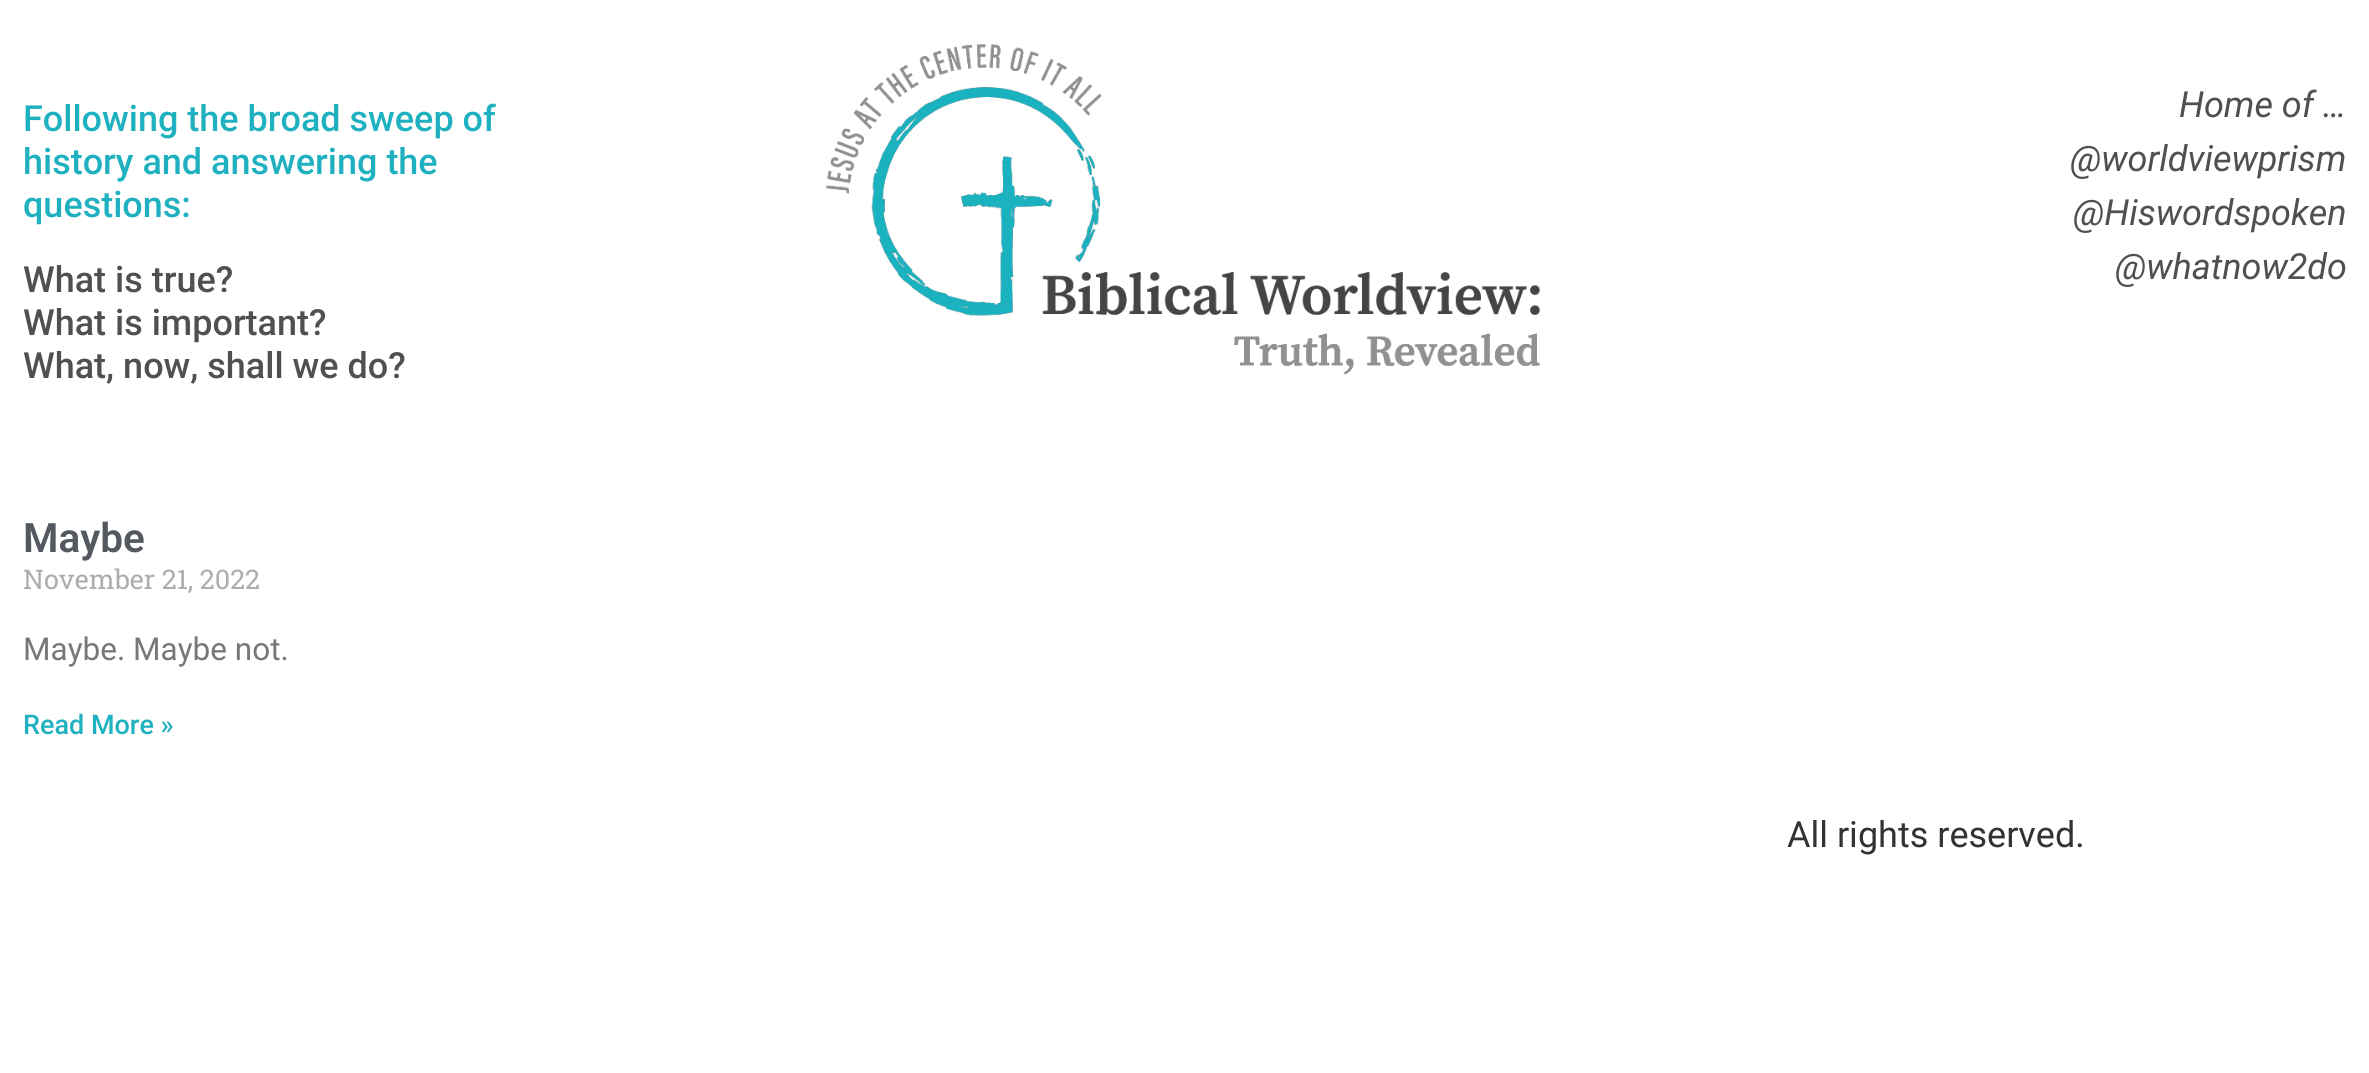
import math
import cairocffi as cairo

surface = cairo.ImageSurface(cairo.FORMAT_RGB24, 2369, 1073)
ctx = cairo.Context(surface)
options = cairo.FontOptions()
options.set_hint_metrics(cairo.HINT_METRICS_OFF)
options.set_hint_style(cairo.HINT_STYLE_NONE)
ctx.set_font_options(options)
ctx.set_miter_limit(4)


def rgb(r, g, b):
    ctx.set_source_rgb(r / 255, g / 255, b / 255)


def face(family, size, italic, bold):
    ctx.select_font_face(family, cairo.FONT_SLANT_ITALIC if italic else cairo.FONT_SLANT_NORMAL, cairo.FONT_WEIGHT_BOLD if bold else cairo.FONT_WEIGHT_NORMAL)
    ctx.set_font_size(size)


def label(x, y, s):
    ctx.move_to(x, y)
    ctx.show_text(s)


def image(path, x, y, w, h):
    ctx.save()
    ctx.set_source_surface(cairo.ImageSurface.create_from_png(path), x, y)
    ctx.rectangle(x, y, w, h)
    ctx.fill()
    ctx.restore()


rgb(255, 255, 255)
ctx.paint()
face('Roboto Medium', 36, 0, 0)
rgb(31, 177, 192)
label(23, 131, 'Following the broad sweep of')
label(23, 174, 'history and answering the')
label(23, 217, 'questions:')
rgb(81, 79, 79)
label(23, 292, 'What is true?')
label(23, 335, 'What is important?')
label(23, 378, 'What, now, shall we do?')
image('image0.png', 825, 44, 716, 331)
face('Roboto', 36, 1, 0)
label(2179, 117, 'Home of …')
label(2070, 171, '@worldviewprism')
label(2073, 225, '@Hiswordspoken')
label(2115, 279, '@whatnow2do')
face('Roboto SemiBold', 40.5, 0, 0)
rgb(84, 89, 95)
label(23, 552, 'Maybe')
face('Roboto Slab', 27, 0, 0)
rgb(173, 173, 173)
label(23, 589, 'November 21, 2022')
face('Roboto', 31.5, 0, 0)
rgb(119, 119, 119)
label(23, 660, 'Maybe. Maybe not.')
face('Roboto Medium', 27, 0, 0)
rgb(31, 177, 192)
label(23, 734, 'Read More »')
face('Roboto', 36, 0, 0)
rgb(51, 51, 51)
label(1787, 847, 'All rights reserved.')
surface.write_to_png('render.png')
